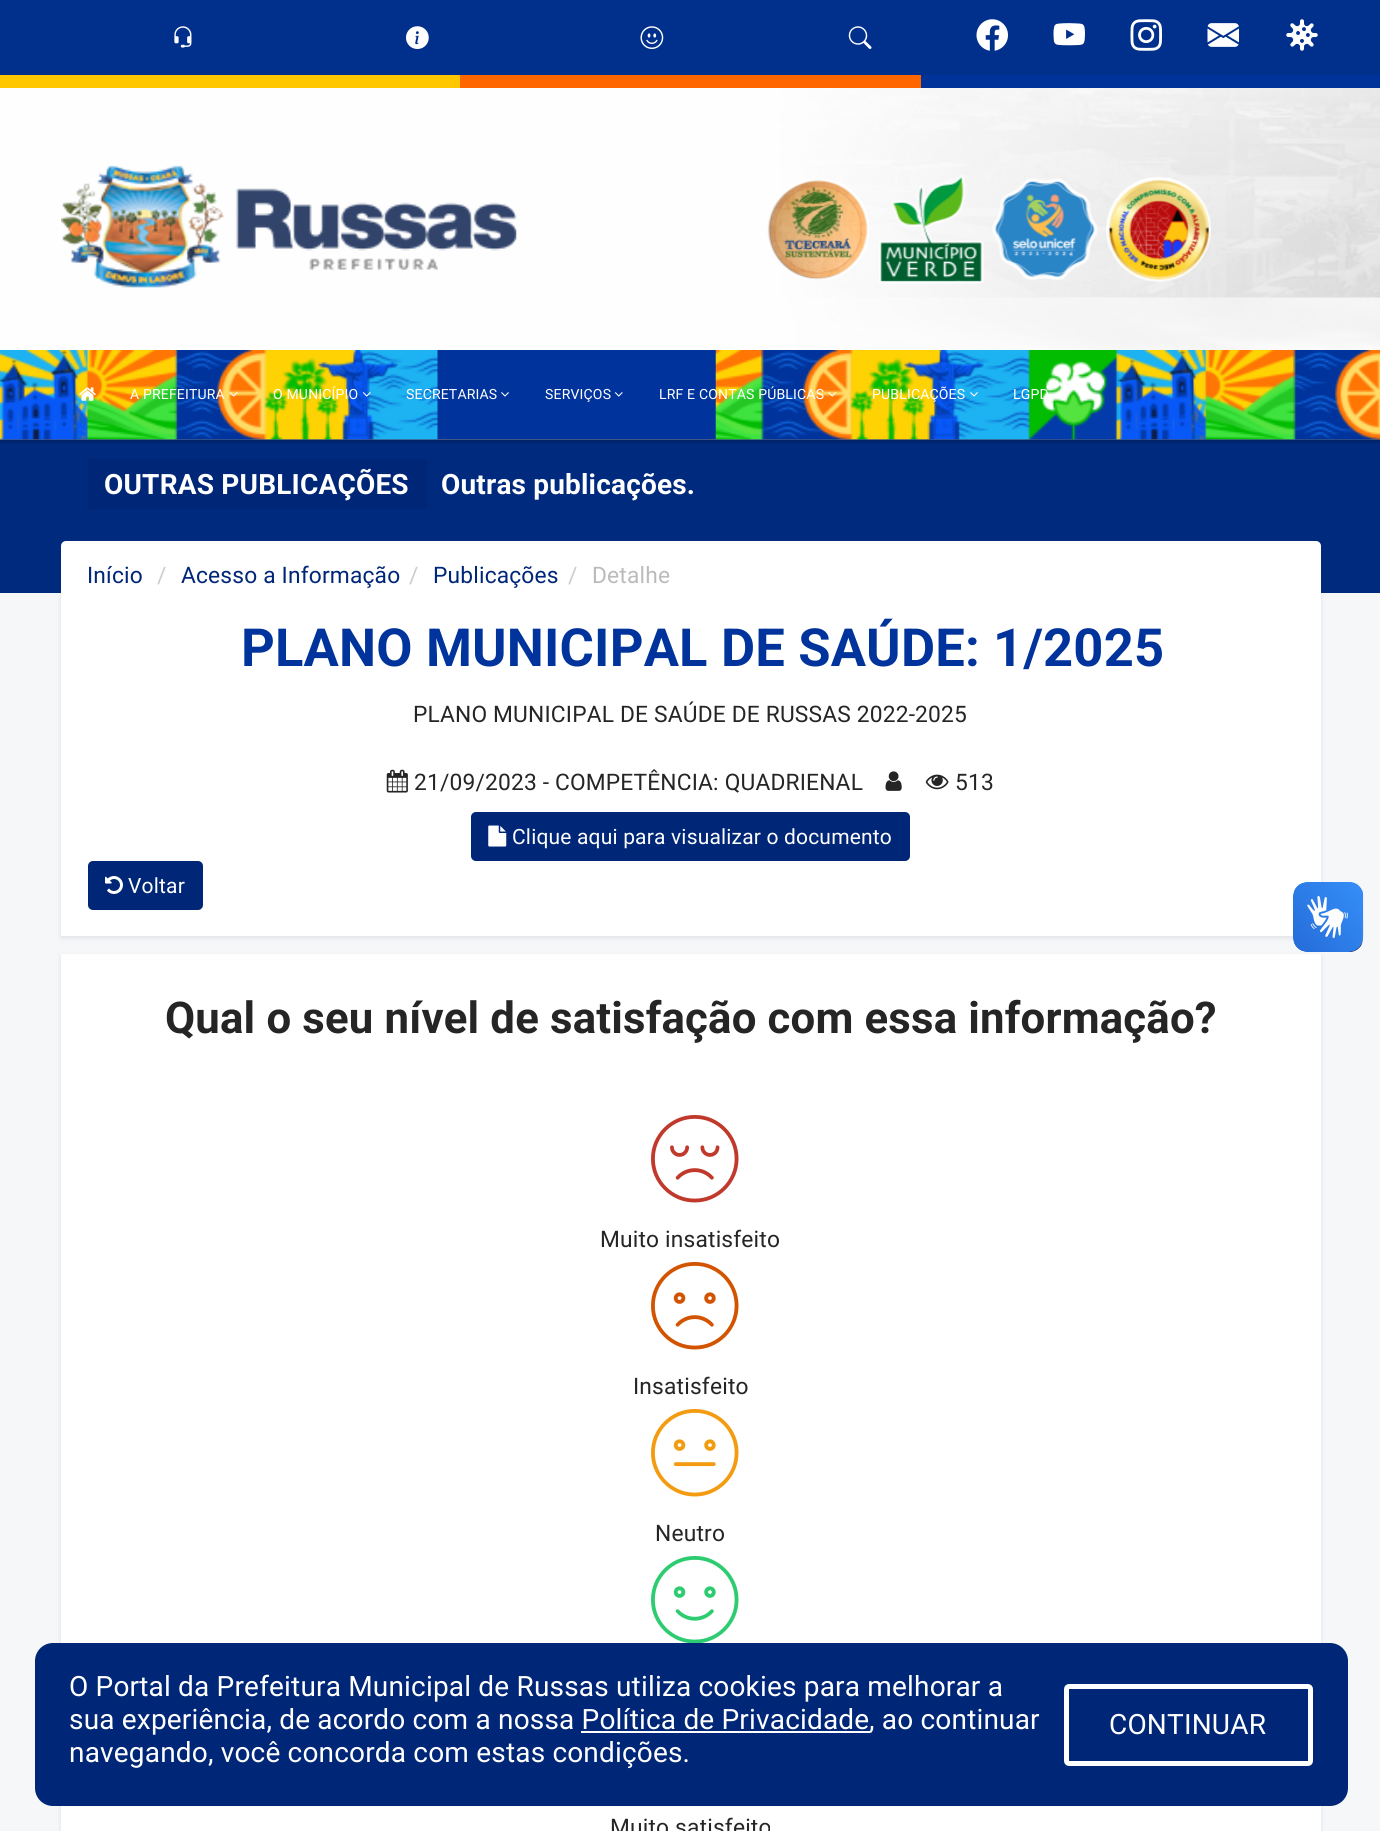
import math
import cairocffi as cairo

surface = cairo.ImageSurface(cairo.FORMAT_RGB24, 1380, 1831)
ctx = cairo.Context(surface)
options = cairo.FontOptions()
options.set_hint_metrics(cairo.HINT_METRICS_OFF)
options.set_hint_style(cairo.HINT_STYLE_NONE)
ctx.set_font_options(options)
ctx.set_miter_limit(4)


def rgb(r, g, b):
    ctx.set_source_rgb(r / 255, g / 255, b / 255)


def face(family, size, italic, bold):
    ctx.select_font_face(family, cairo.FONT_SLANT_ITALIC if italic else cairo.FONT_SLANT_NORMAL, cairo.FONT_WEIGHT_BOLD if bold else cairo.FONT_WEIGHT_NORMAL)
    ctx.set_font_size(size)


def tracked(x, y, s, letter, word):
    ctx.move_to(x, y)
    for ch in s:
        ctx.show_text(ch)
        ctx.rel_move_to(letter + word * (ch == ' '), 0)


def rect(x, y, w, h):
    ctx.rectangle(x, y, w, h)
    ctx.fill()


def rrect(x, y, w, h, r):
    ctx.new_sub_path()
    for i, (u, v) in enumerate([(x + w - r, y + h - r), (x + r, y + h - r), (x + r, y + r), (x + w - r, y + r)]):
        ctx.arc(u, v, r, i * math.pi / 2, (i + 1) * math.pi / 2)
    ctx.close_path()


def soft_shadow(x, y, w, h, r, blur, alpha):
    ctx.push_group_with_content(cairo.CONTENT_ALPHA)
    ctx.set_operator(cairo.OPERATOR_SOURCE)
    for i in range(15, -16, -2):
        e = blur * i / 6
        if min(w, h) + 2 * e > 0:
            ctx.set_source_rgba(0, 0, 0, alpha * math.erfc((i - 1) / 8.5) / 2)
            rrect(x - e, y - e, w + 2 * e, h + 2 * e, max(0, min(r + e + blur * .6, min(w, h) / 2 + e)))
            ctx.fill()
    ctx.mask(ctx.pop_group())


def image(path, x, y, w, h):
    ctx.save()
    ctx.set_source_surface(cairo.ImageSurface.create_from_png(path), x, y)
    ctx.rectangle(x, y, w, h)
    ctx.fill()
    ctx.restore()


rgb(246, 247, 248)
ctx.paint()
rgb(3, 0, 71)
soft_shadow(61, 543, 1260, 395, 0, 2.5, 0.09)
rgb(0, 42, 125)
rect(0, 439, 1380, 154)
rgb(0, 0, 0)
soft_shadow(0, 2, 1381, 439, 0, 2, 0.3)
image('image0.png', 0, 88, 1380, 352)
rgb(0, 47, 140)
rect(0, 0, 1380, 75)
image('image1.png', 174, 26, 18, 22)
image('image2.png', 406, 26, 23, 23)
image('image3.png', 640, 26, 24, 23)
image('image4.png', 848, 26, 24, 23)
image('image5.png', 976, 19, 32, 32)
image('image6.png', 1053, 23, 32, 23)
image('image7.png', 1130, 19, 32, 32)
image('image8.png', 1207, 23, 32, 24)
image('image9.png', 1286, 19, 32, 32)
rgb(255, 199, 0)
rect(0, 75, 460, 13)
rgb(255, 102, 0)
rect(460, 75, 461, 13)
rgb(0, 51, 153)
rect(921, 75, 459, 13)
image('image10.png', 61, 165, 456, 123)
image('image11.png', 767, 180, 102, 100)
image('image12.png', 879, 175, 105, 109)
image('image13.png', 992, 178, 106, 102)
image('image14.png', 1106, 177, 105, 105)
rgb(0, 52, 156)
rect(437, 350, 859, 89)
image('image15.png', 0, 350, 1380, 90)
image('image16.png', 79, 387, 17, 14)
face('Roboto', 14, 0, 0)
rgb(255, 255, 255)
tracked(130, 399, 'A PREFEITURA', 0.18, 0)
image('image17.png', 229, 392, 9, 5)
tracked(273, 399, 'O MUNICÍPIO', 0.18, 0)
image('image18.png', 362, 392, 9, 5)
tracked(406, 399, 'SECRETARIAS', 0.18, 0)
image('image19.png', 501, 392, 8, 5)
tracked(545, 399, 'SERVIÇOS', 0.18, 0)
image('image20.png', 614, 392, 9, 5)
tracked(659, 399, 'LRF E CONTAS PÚBLICAS', 0.18, 0)
image('image21.png', 828, 392, 9, 5)
tracked(872, 399, 'PUBLICAÇÕES', 0.18, 0)
image('image22.png', 970, 392, 8, 5)
tracked(1013, 399, 'LGPD', 0.18, 0)
rgb(0, 38, 119)
rect(88, 459, 339, 50)
face('Roboto', 28, 0, 1)
rgb(255, 255, 255)
tracked(104, 494, 'OUTRAS PUBLICAÇÕES', 0.18, 0)
tracked(441, 494, 'Outras publicações.', 0.18, 0)
rect(61, 606, 1260, 330)
rrect(61, 541, 1260, 70, 5)
ctx.fill()
face('Roboto', 22.75, 0, 0)
rgb(0, 38, 119)
tracked(87, 583, 'Início', 0.18, 0)
rgb(204, 204, 204)
tracked(157, 583, '/', 0.18, 0)
rgb(0, 38, 119)
tracked(181, 583, 'Acesso a Informação', 0.18, 0)
rgb(204, 204, 204)
tracked(409, 583, '/', 0.18, 0)
rgb(0, 38, 119)
tracked(433, 583, 'Publicações', 0.18, 0)
rgb(204, 204, 204)
tracked(568, 583, '/', 0.18, 0)
rgb(187, 187, 187)
tracked(592, 583, 'Detalhe', 0.18, 0)
face('Roboto', 52.5, 0, 1)
rgb(0, 52, 156)
tracked(241, 666, 'PLANO MUNICIPAL DE SAÚDE: 1/2025', 0.18, 0)
face('Roboto', 22.75, 0, 0)
rgb(37, 37, 37)
tracked(413, 722, 'PLANO MUNICIPAL DE SAÚDE DE RUSSAS 2022-2025', 0.18, 0)
image('image23.png', 386, 769, 22, 24)
tracked(414, 790, '21/09/2023 - COMPETÊNCIA: QUADRIENAL', 0.18, 0)
image('image24.png', 885, 771, 17, 20)
image('image25.png', 925, 774, 24, 16)
tracked(955, 790, '513', 0.18, 0)
rgb(0, 38, 119)
rrect(471, 812, 439, 49, 5)
ctx.fill()
image('image26.png', 488, 825, 19, 22)
face('Roboto', 21, 0, 0)
rgb(255, 255, 255)
tracked(512, 844, 'Clique aqui para visualizar o documento', 0.18, 0)
rgb(0, 38, 119)
rrect(88, 861, 115, 49, 5)
ctx.fill()
image('image27.png', 105, 876, 18, 18)
rgb(255, 255, 255)
tracked(128, 893, 'Voltar', 0.18, 0)
rgb(3, 0, 71)
soft_shadow(61, 956, 1260, 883, 0, 2.5, 0.09)
image('image28.png', 1293, 882, 71, 70)
image('image29.png', 1293, 882, 70, 70)
rgb(255, 255, 255)
rect(61, 954, 1260, 877)
face('Roboto', 43.75, 0, 1)
rgb(37, 37, 37)
tracked(165, 1033, 'Qual o seu nível de satisfação com essa informação?', 0.18, 0)
image('image30.png', 651, 1115, 88, 88)
face('Roboto', 22.75, 0, 0)
tracked(600, 1247, 'Muito insatisfeito', 0.18, 0)
image('image31.png', 651, 1262, 88, 88)
tracked(633, 1394, 'Insatisfeito', 0.18, 0)
image('image32.png', 651, 1409, 88, 88)
tracked(655, 1541, 'Neutro', 0.18, 0)
image('image33.png', 651, 1556, 88, 87)
tracked(610, 1835, 'Muito satisfeito', 0.18, 0)
rgb(0, 38, 119)
rrect(35, 1643, 1313, 163, 18)
ctx.fill()
face('Roboto', 28, 0, 0)
rgb(255, 255, 255)
tracked(69, 1696, 'O Portal da Prefeitura Municipal de Russas utiliza cookies para melhorar a', 0.18, 0)
tracked(69, 1729, 'sua experiência, de acordo com a nossa Política de Privacidade', 0.18, 0)
rect(581, 1731, 289, 2)
tracked(869, 1729, ', ao continuar', 0.18, 0)
tracked(69, 1762, 'navegando, você concorda com estas condições.', 0.18, 0)
rrect(1066.5, 1686.5, 244, 77, 2.5)
ctx.set_line_width(5)
ctx.stroke()
tracked(1109, 1734, 'CONTINUAR', 0.18, 0)
surface.write_to_png('render.png')
